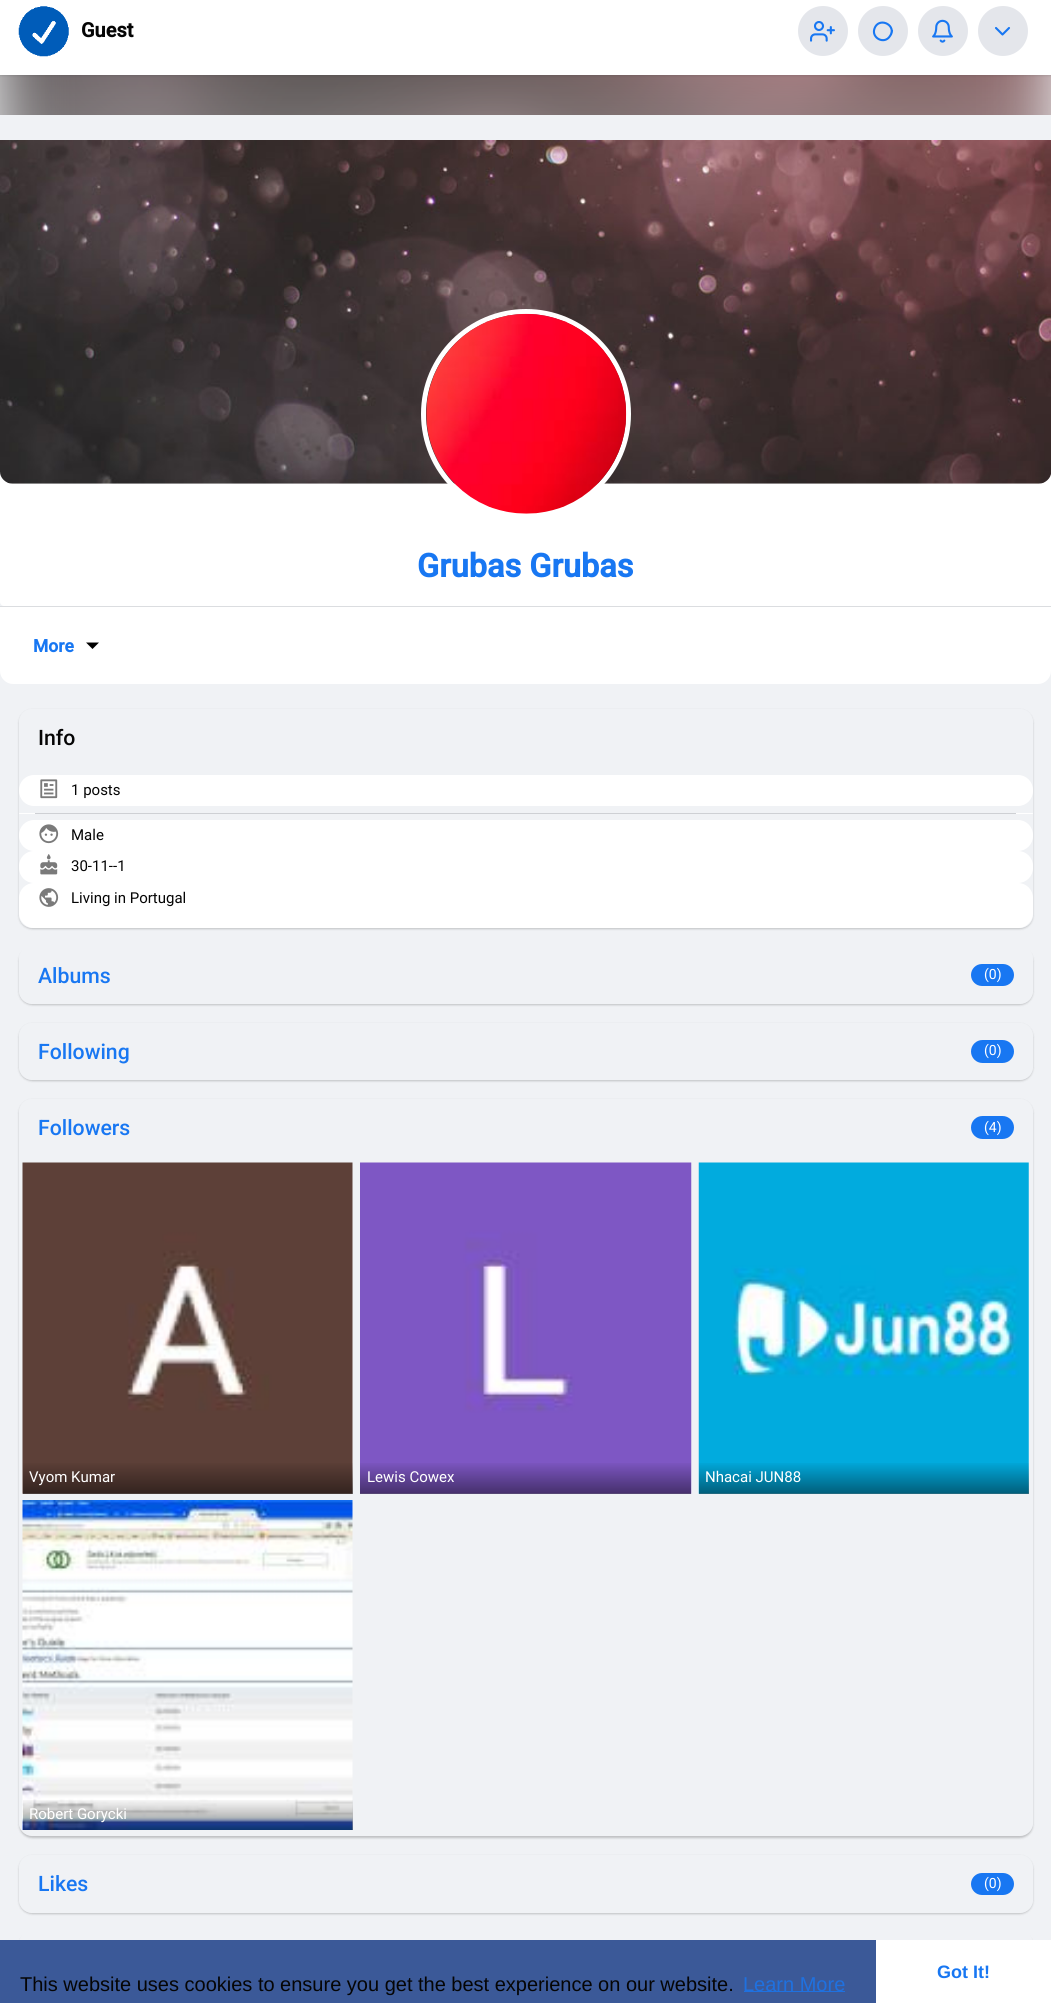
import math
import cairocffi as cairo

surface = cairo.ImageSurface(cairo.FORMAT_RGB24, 1051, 2003)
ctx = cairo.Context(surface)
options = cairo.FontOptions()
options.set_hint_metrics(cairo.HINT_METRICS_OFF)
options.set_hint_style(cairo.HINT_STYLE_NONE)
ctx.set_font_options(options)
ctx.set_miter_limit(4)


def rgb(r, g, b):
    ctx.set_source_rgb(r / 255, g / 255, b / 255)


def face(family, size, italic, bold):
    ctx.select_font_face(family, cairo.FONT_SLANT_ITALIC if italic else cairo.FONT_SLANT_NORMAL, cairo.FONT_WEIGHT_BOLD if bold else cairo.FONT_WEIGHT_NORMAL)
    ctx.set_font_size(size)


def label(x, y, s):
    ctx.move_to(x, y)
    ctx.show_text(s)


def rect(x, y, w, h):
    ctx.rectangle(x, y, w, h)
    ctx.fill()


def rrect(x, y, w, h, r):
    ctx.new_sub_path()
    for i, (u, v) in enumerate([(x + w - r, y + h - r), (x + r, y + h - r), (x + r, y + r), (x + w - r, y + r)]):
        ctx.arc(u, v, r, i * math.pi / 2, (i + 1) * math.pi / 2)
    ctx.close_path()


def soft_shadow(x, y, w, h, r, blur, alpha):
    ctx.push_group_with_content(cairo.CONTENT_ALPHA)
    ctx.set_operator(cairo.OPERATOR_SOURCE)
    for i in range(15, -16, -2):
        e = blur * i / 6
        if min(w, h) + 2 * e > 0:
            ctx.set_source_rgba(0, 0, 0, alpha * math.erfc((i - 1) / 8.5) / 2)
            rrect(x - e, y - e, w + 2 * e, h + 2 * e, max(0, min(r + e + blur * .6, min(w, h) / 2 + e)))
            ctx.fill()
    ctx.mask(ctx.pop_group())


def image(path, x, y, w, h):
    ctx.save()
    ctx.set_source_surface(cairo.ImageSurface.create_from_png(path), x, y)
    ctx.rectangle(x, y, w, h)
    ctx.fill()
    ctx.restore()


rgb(240, 242, 245)
ctx.paint()
image('image3.png', 0, 75, 1051, 40)
gradient = cairo.LinearGradient(526, 0, 526, 675)
gradient.add_color_stop_rgba(0, 1, 1, 1, 0.1)
gradient.add_color_stop_rgba(0.8, 1, 1, 1, 1)
gradient.add_color_stop_rgba(1, 1, 1, 1, 1)
ctx.set_source(gradient)
rect(0, 75, 1051, 40)
rgb(0, 0, 0)
soft_shadow(0, 1, 1051, 75, 0, 1, 0.1)
rgb(255, 255, 255)
rect(0, 0, 1051, 75)
image('image0.png', 18, 6, 51, 51)
face('Roboto', 20, 0, 1)
rgb(5, 5, 5)
label(81, 37, 'Guest')
rgb(228, 230, 235)
ctx.new_path()
ctx.arc(823, 31, 25, 0, 2 * math.pi)
ctx.fill()
image('image1.png', 810, 21, 25, 21)
ctx.arc(883, 31, 25, 0, 2 * math.pi)
ctx.fill()
ctx.new_path()
ctx.move_to(892, 30.5)
ctx.curve_to(892, 32.5, 891, 34.5, 890, 36)
ctx.curve_to(884.5, 45, 871, 38, 874.5, 28.5)
ctx.curve_to(878.5, 17, 895.5, 24, 891, 34.5)
ctx.close_path()
rgb(24, 119, 242)
ctx.set_line_width(2.1)
ctx.set_line_cap(cairo.LINE_CAP_ROUND)
ctx.set_line_join(cairo.LINE_JOIN_ROUND)
ctx.stroke()
rgb(228, 230, 235)
ctx.arc(943, 31, 25, 0, 2 * math.pi)
ctx.fill()
image('image2.png', 932, 19, 21, 24)
ctx.arc(1003, 31, 25, 0, 2 * math.pi)
ctx.fill()
ctx.new_path()
ctx.move_to(996, 28)
ctx.line_to(1002.5, 34.5)
ctx.line_to(1009, 28)
rgb(24, 119, 242)
ctx.stroke()
rgb(255, 255, 255)
ctx.new_path()
ctx.move_to(0, 140)
ctx.line_to(1051, 140)
ctx.line_to(1051, 606)
ctx.line_to(4, 606)
ctx.curve_to(2, 606, 0, 604, 0, 602)
ctx.close_path()
ctx.fill()
image('image4.png', 0, 140, 1051, 344)
ctx.arc(526, 414, 102.5, 0, 2 * math.pi)
ctx.set_line_width(5)
ctx.set_line_cap(cairo.LINE_CAP_BUTT)
ctx.set_line_join(cairo.LINE_JOIN_MITER)
ctx.stroke()
image('image5.png', 426, 313, 201, 201)
face('Roboto', 32.5, 0, 1)
rgb(24, 119, 242)
label(417, 577, 'Grubas Grubas')
rgb(255, 255, 255)
ctx.new_path()
ctx.move_to(0, 606)
ctx.line_to(1051, 606)
ctx.line_to(1051, 671)
ctx.curve_to(1051, 678, 1045, 684, 1038, 684)
ctx.line_to(13, 684)
ctx.curve_to(6, 684, 0, 678, 0, 671)
ctx.close_path()
ctx.fill()
rgb(219, 221, 224)
rect(0, 606, 1051, 1)
face('Roboto', 17.5, 0, 1)
rgb(24, 119, 242)
label(33, 652, 'More')
rgb(0, 0, 0)
ctx.new_path()
ctx.move_to(86, 642.5)
ctx.line_to(92.5, 649)
ctx.line_to(99, 642.5)
ctx.close_path()
ctx.fill()
ctx.save()
ctx.set_fill_rule(cairo.FILL_RULE_EVEN_ODD)
ctx.new_path()
ctx.move_to(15, 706)
ctx.line_to(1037, 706)
ctx.line_to(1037, 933)
ctx.line_to(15, 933)
ctx.close_path()
ctx.move_to(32, 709)
ctx.line_to(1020, 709)
ctx.curve_to(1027, 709, 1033, 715, 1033, 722)
ctx.line_to(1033, 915)
ctx.curve_to(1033, 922, 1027, 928, 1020, 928)
ctx.line_to(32, 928)
ctx.curve_to(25, 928, 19, 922, 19, 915)
ctx.line_to(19, 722)
ctx.curve_to(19, 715, 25, 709, 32, 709)
ctx.close_path()
ctx.clip()
rgb(0, 0, 0)
soft_shadow(19, 710, 1014, 219, 13, 1, 0.2)
ctx.restore()
face('Roboto Medium', 21.25, 0, 0)
rgb(5, 5, 5)
label(38, 745, 'Info')
rgb(255, 255, 255)
rrect(19, 775, 1014, 31, 15)
ctx.fill()
image('image6.png', 40, 779, 18, 20)
face('Roboto', 15, 0, 0)
rgb(5, 5, 5)
label(71, 795, '1 posts')
rgb(255, 255, 255)
rrect(19, 813, 1014, 1, 0.5)
ctx.fill()
rgb(206, 208, 212)
rect(35, 813, 981, 1)
rgb(255, 255, 255)
rrect(19, 820, 1014, 31, 15)
ctx.fill()
image('image7.png', 39, 824, 20, 20)
rgb(5, 5, 5)
label(71, 840, 'Male')
rgb(255, 255, 255)
rrect(19, 851, 1014, 32, 15)
ctx.fill()
image('image8.png', 40, 854, 18, 21)
rgb(5, 5, 5)
label(71, 871, '30-11--1')
rgb(255, 255, 255)
rrect(19, 883, 1014, 45, 15)
ctx.fill()
image('image9.png', 39, 888, 20, 19)
rgb(5, 5, 5)
label(71, 903, 'Living in Portugal')
ctx.save()
ctx.set_fill_rule(cairo.FILL_RULE_EVEN_ODD)
ctx.new_path()
ctx.move_to(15, 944)
ctx.line_to(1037, 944)
ctx.line_to(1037, 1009)
ctx.line_to(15, 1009)
ctx.close_path()
ctx.move_to(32, 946)
ctx.line_to(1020, 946)
ctx.curve_to(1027, 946, 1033, 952, 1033, 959)
ctx.line_to(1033, 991)
ctx.curve_to(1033, 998, 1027, 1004, 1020, 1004)
ctx.line_to(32, 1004)
ctx.curve_to(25, 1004, 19, 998, 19, 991)
ctx.line_to(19, 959)
ctx.curve_to(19, 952, 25, 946, 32, 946)
ctx.close_path()
ctx.clip()
rgb(0, 0, 0)
soft_shadow(19, 948, 1014, 57, 13, 1, 0.2)
ctx.restore()
face('Roboto Medium', 21.25, 0, 0)
rgb(24, 119, 242)
label(38, 983, 'Albums')
rrect(971, 964, 43, 22, 11)
ctx.fill()
face('Roboto', 14, 0, 0)
rgb(255, 255, 255)
label(984, 979, '(0)')
ctx.save()
ctx.set_fill_rule(cairo.FILL_RULE_EVEN_ODD)
ctx.new_path()
ctx.move_to(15, 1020)
ctx.line_to(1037, 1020)
ctx.line_to(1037, 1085)
ctx.line_to(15, 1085)
ctx.close_path()
ctx.move_to(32, 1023)
ctx.line_to(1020, 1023)
ctx.curve_to(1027, 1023, 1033, 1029, 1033, 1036)
ctx.line_to(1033, 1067)
ctx.curve_to(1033, 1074, 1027, 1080, 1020, 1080)
ctx.line_to(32, 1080)
ctx.curve_to(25, 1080, 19, 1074, 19, 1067)
ctx.line_to(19, 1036)
ctx.curve_to(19, 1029, 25, 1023, 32, 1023)
ctx.close_path()
ctx.clip()
rgb(0, 0, 0)
soft_shadow(19, 1024, 1014, 57, 13, 1, 0.2)
ctx.restore()
face('Roboto Medium', 21.25, 0, 0)
rgb(24, 119, 242)
label(38, 1059, 'Following')
rrect(971, 1040, 43, 23, 11.5)
ctx.fill()
face('Roboto', 14, 0, 0)
rgb(255, 255, 255)
label(984, 1055, '(0)')
ctx.save()
ctx.set_fill_rule(cairo.FILL_RULE_EVEN_ODD)
ctx.new_path()
ctx.move_to(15, 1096)
ctx.line_to(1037, 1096)
ctx.line_to(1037, 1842)
ctx.line_to(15, 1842)
ctx.close_path()
ctx.move_to(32, 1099)
ctx.line_to(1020, 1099)
ctx.curve_to(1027, 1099, 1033, 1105, 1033, 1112)
ctx.line_to(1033, 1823)
ctx.curve_to(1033, 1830, 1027, 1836, 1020, 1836)
ctx.line_to(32, 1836)
ctx.curve_to(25, 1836, 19, 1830, 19, 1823)
ctx.line_to(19, 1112)
ctx.curve_to(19, 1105, 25, 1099, 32, 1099)
ctx.close_path()
ctx.clip()
rgb(0, 0, 0)
soft_shadow(19, 1100, 1014, 738, 13, 1, 0.2)
ctx.restore()
face('Roboto Medium', 21.25, 0, 0)
rgb(24, 119, 242)
label(38, 1135, 'Followers')
rrect(971, 1116, 43, 23, 11.5)
ctx.fill()
face('Roboto', 14, 0, 0)
rgb(255, 255, 255)
label(984, 1132, '(4)')
image('image10.png', 22, 1162, 331, 332)
gradient = cairo.LinearGradient(188, 1461, 188, 1494)
gradient.add_color_stop_rgba(0, 0, 0, 0, 0)
gradient.add_color_stop_rgba(1, 0, 0, 0, 0.45)
ctx.set_source(gradient)
rect(23, 1463, 330, 31)
face('Roboto', 15, 0, 0)
rgb(255, 255, 255)
label(29, 1482, 'Vyom Kumar')
image('image11.png', 360, 1162, 332, 332)
gradient = cairo.LinearGradient(526, 1461, 526, 1494)
gradient.add_color_stop_rgba(0, 0, 0, 0, 0)
gradient.add_color_stop_rgba(1, 0, 0, 0, 0.45)
ctx.set_source(gradient)
rect(360, 1463, 331, 31)
rgb(255, 255, 255)
label(367, 1482, 'Lewis Cowex')
image('image12.png', 698, 1162, 331, 332)
gradient = cairo.LinearGradient(864, 1461, 864, 1494)
gradient.add_color_stop_rgba(0, 0, 0, 0, 0)
gradient.add_color_stop_rgba(1, 0, 0, 0, 0.45)
ctx.set_source(gradient)
rect(699, 1463, 330, 31)
rgb(255, 255, 255)
label(705, 1482, 'Nhacai JUN88')
image('image13.png', 22, 1500, 331, 330)
gradient = cairo.LinearGradient(188, 1798, 188, 1830)
gradient.add_color_stop_rgba(0, 0, 0, 0, 0)
gradient.add_color_stop_rgba(1, 0, 0, 0, 0.45)
ctx.set_source(gradient)
rect(23, 1800, 330, 30)
rgb(255, 255, 255)
label(29, 1819, 'Robert Gorycki')
ctx.save()
ctx.set_fill_rule(cairo.FILL_RULE_EVEN_ODD)
ctx.new_path()
ctx.move_to(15, 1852)
ctx.line_to(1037, 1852)
ctx.line_to(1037, 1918)
ctx.line_to(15, 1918)
ctx.close_path()
ctx.move_to(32, 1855)
ctx.line_to(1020, 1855)
ctx.curve_to(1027, 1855, 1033, 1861, 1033, 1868)
ctx.line_to(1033, 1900)
ctx.curve_to(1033, 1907, 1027, 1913, 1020, 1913)
ctx.line_to(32, 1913)
ctx.curve_to(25, 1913, 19, 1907, 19, 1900)
ctx.line_to(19, 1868)
ctx.curve_to(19, 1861, 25, 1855, 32, 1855)
ctx.close_path()
ctx.clip()
rgb(0, 0, 0)
soft_shadow(19, 1856, 1014, 58, 13, 1, 0.2)
ctx.restore()
face('Roboto Medium', 21.25, 0, 0)
rgb(24, 119, 242)
label(38, 1891, 'Likes')
rrect(971, 1873, 43, 22, 11)
ctx.fill()
face('Roboto', 14, 0, 0)
rgb(255, 255, 255)
label(984, 1888, '(0)')
ctx.save()
ctx.set_fill_rule(cairo.FILL_RULE_EVEN_ODD)
ctx.new_path()
ctx.move_to(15, 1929)
ctx.line_to(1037, 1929)
ctx.line_to(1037, 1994)
ctx.line_to(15, 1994)
ctx.close_path()
ctx.move_to(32, 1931)
ctx.line_to(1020, 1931)
ctx.curve_to(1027, 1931, 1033, 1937, 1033, 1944)
ctx.line_to(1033, 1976)
ctx.curve_to(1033, 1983, 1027, 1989, 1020, 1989)
ctx.line_to(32, 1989)
ctx.curve_to(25, 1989, 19, 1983, 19, 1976)
ctx.line_to(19, 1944)
ctx.curve_to(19, 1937, 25, 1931, 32, 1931)
ctx.close_path()
ctx.clip()
rgb(0, 0, 0)
soft_shadow(19, 1933, 1014, 57, 13, 1, 0.2)
ctx.restore()
rgb(59, 89, 152)
rect(0, 1940, 876, 63)
rgb(255, 255, 255)
rect(876, 1940, 175, 63)
face('Liberation Sans', 18, 0, 1)
rgb(24, 119, 242)
label(937, 1978, 'Got It!')
face('Liberation Sans', 20, 0, 0)
rgb(5, 5, 5)
label(20, 1991, 'This website uses cookies to ensure you get the best experience on our website.')
rgb(31, 113, 224)
rect(744, 1991, 101, 1)
label(743, 1991, 'Learn More')
surface.write_to_png('render.png')
